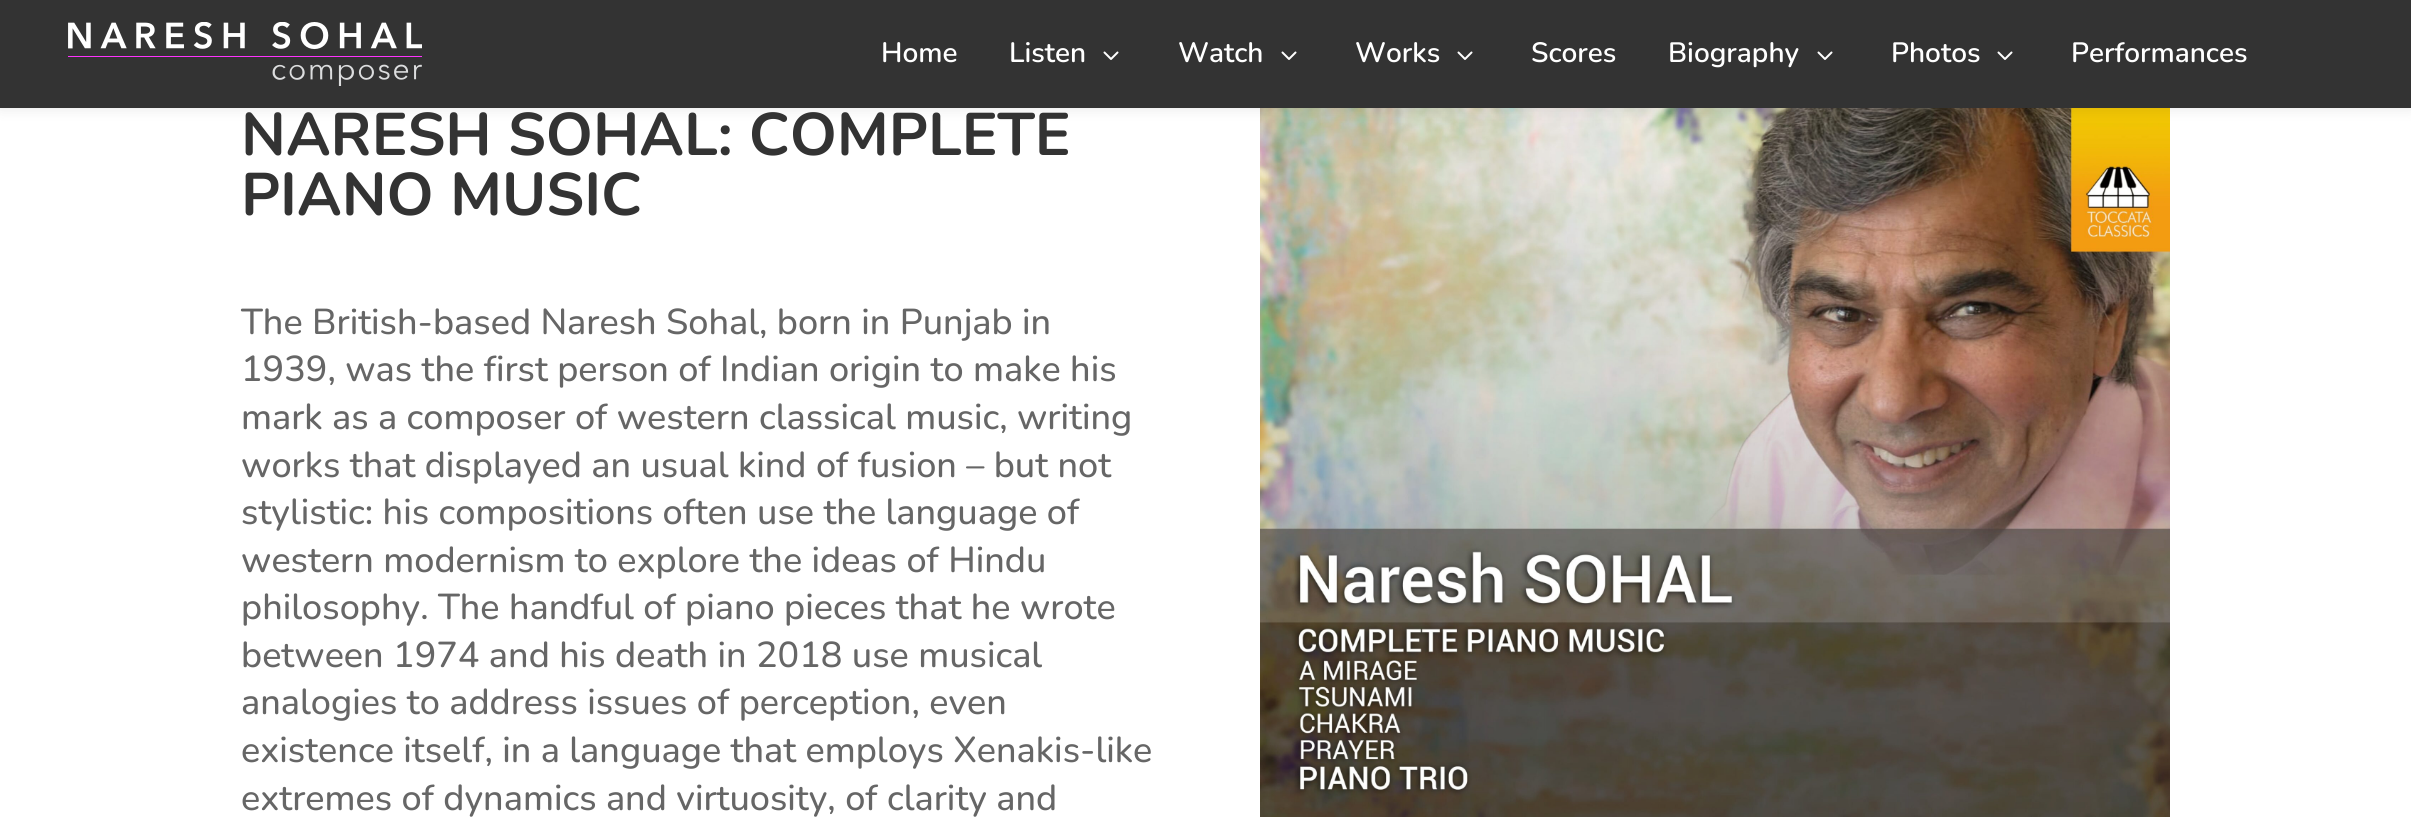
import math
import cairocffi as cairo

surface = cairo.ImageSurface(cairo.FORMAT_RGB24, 2411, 817)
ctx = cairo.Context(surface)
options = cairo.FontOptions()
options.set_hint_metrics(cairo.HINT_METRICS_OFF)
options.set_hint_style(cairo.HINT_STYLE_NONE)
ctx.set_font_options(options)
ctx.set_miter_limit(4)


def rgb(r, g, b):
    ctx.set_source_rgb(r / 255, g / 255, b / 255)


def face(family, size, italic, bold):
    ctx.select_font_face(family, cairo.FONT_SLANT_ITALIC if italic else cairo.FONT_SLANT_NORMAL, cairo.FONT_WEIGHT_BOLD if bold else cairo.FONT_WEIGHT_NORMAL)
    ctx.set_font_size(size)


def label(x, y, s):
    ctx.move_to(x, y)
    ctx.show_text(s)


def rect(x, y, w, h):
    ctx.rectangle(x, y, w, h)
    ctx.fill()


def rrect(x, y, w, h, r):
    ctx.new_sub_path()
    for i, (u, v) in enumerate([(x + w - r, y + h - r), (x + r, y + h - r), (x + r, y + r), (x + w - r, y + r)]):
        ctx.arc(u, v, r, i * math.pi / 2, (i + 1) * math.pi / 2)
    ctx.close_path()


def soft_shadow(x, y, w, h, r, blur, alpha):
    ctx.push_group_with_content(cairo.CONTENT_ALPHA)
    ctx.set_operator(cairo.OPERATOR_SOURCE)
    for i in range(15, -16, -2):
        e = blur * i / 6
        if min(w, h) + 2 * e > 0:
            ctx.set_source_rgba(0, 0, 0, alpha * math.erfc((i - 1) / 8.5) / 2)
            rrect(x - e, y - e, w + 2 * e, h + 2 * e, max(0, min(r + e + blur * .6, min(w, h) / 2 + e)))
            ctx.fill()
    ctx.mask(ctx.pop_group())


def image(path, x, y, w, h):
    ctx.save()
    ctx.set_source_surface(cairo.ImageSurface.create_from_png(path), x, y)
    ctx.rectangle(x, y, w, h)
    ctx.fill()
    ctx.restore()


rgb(255, 255, 255)
ctx.paint()
image('image2.png', 1260, 108, 910, 709)
rgb(0, 0, 0)
soft_shadow(0, 0, 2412, 108, 0, 7, 0.1)
rgb(51, 51, 51)
rect(0, 0, 2411, 108)
image('image0.png', 68, 22, 354, 64)
face('Nunito SemiBold', 28, 0, 0)
rgb(255, 255, 255)
label(881, 62, 'Home')
label(1009, 62, 'Listen')
image('image1.png', 1103, 51, 16, 9)
label(1178, 62, 'Watch')
image('image1.png', 1281, 51, 16, 9)
label(1355, 62, 'Works')
image('image1.png', 1457, 51, 16, 9)
label(1531, 62, 'Scores')
label(1668, 62, 'Biography')
image('image1.png', 1817, 51, 16, 9)
label(1891, 62, 'Photos')
image('image1.png', 1997, 51, 16, 9)
label(2071, 62, 'Performances')
face('Nunito', 60, 0, 1)
rgb(51, 51, 51)
label(241, 155, 'NARESH SOHAL: COMPLETE')
label(241, 215, 'PIANO MUSIC')
face('Nunito Medium', 36, 0, 0)
rgb(102, 102, 102)
label(241, 334, 'The British-based Naresh Sohal, born in Punjab in')
label(241, 381, '1939, was the first person of Indian origin to make his')
label(241, 429, 'mark as a composer of western classical music, writing')
label(241, 477, 'works that displayed an usual kind of fusion – but not')
label(241, 524, 'stylistic: his compositions often use the language of')
label(241, 572, 'western modernism to explore the ideas of Hindu')
label(241, 619, 'philosophy. The handful of piano pieces that he wrote')
label(241, 667, 'between 1974 and his death in 2018 use musical')
label(241, 714, 'analogies to address issues of perception, even')
label(241, 762, 'existence itself, in a language that employs Xenakis-like')
label(241, 810, 'extremes of dynamics and virtuosity, of clarity and')
surface.write_to_png('render.png')
